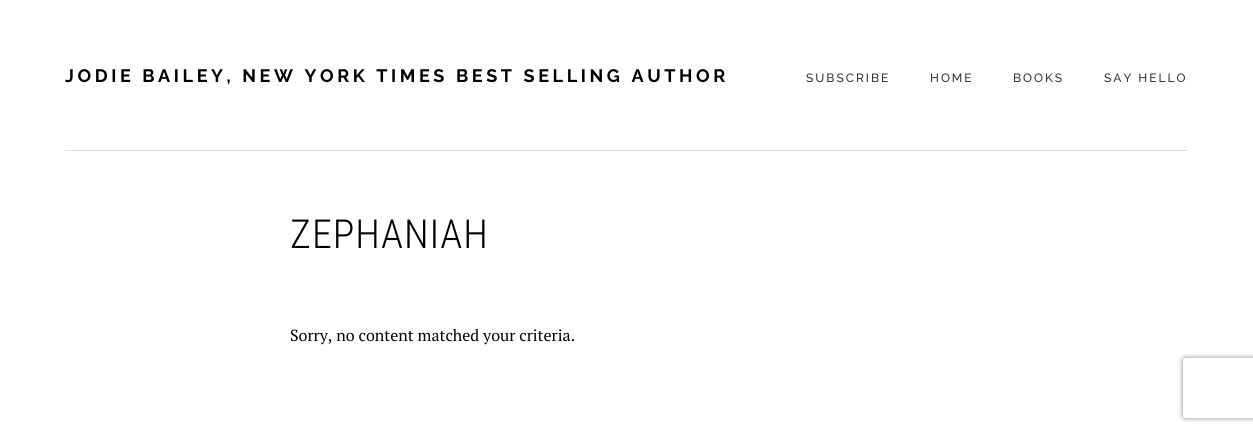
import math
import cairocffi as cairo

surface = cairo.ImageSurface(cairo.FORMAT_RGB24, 1253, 432)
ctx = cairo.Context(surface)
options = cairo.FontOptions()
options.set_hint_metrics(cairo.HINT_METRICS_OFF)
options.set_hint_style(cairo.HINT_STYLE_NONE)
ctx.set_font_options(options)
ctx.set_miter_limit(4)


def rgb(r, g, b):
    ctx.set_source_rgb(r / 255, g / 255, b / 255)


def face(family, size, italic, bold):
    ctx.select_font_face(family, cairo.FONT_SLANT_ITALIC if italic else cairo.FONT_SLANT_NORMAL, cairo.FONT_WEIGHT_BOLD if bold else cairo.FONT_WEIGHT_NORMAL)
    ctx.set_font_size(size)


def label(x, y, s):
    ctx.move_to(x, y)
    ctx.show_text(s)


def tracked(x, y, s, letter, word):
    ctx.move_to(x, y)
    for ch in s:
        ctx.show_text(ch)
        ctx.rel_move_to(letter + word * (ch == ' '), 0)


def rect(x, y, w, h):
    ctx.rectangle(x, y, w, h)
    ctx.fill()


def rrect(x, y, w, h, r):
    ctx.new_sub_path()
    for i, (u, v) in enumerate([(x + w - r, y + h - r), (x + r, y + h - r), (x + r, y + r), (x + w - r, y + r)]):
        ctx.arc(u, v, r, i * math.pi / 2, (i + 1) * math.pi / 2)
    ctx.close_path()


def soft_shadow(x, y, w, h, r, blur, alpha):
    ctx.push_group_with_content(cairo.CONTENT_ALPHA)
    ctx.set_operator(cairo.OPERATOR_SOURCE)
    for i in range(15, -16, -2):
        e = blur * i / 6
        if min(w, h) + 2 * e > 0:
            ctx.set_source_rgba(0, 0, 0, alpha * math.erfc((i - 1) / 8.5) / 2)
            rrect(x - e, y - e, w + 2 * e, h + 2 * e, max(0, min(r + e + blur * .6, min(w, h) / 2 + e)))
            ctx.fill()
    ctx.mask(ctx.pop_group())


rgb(255, 255, 255)
ctx.paint()
face('Raleway', 18, 0, 1)
rgb(0, 0, 0)
tracked(65, 82, 'JODIE BAILEY, NEW YORK TIMES BEST SELLING AUTHOR', 3.6, 0)
face('Raleway Medium', 12, 0, 0)
rgb(51, 51, 51)
tracked(806, 82, 'SUBSCRIBE', 2, 0)
tracked(930, 82, 'HOME', 2, 0)
tracked(1013, 82, 'BOOKS', 2, 0)
tracked(1104, 82, 'SAY HELLO', 2, 0)
rgb(220, 220, 220)
rect(65, 150, 1123, 1)
face('Roboto Condensed Light', 40, 0, 0)
rgb(0, 0, 0)
tracked(290, 248, 'ZEPHANIAH', 1, 0)
face('PT Serif', 16, 0, 0)
label(290, 341, 'Sorry, no content matched your criteria.')
ctx.save()
ctx.set_fill_rule(cairo.FILL_RULE_EVEN_ODD)
ctx.new_path()
ctx.move_to(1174, 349)
ctx.line_to(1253, 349)
ctx.line_to(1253, 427)
ctx.line_to(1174, 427)
ctx.close_path()
ctx.move_to(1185, 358)
ctx.line_to(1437, 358)
ctx.curve_to(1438, 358, 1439, 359, 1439, 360)
ctx.line_to(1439, 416)
ctx.curve_to(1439, 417, 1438, 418, 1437, 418)
ctx.line_to(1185, 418)
ctx.curve_to(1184, 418, 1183, 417, 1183, 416)
ctx.line_to(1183, 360)
ctx.curve_to(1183, 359, 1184, 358, 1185, 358)
ctx.close_path()
ctx.clip()
rgb(128, 128, 128)
soft_shadow(1183, 358, 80, 60, 2, 2.5, 1)
ctx.restore()
surface.write_to_png('render.png')
